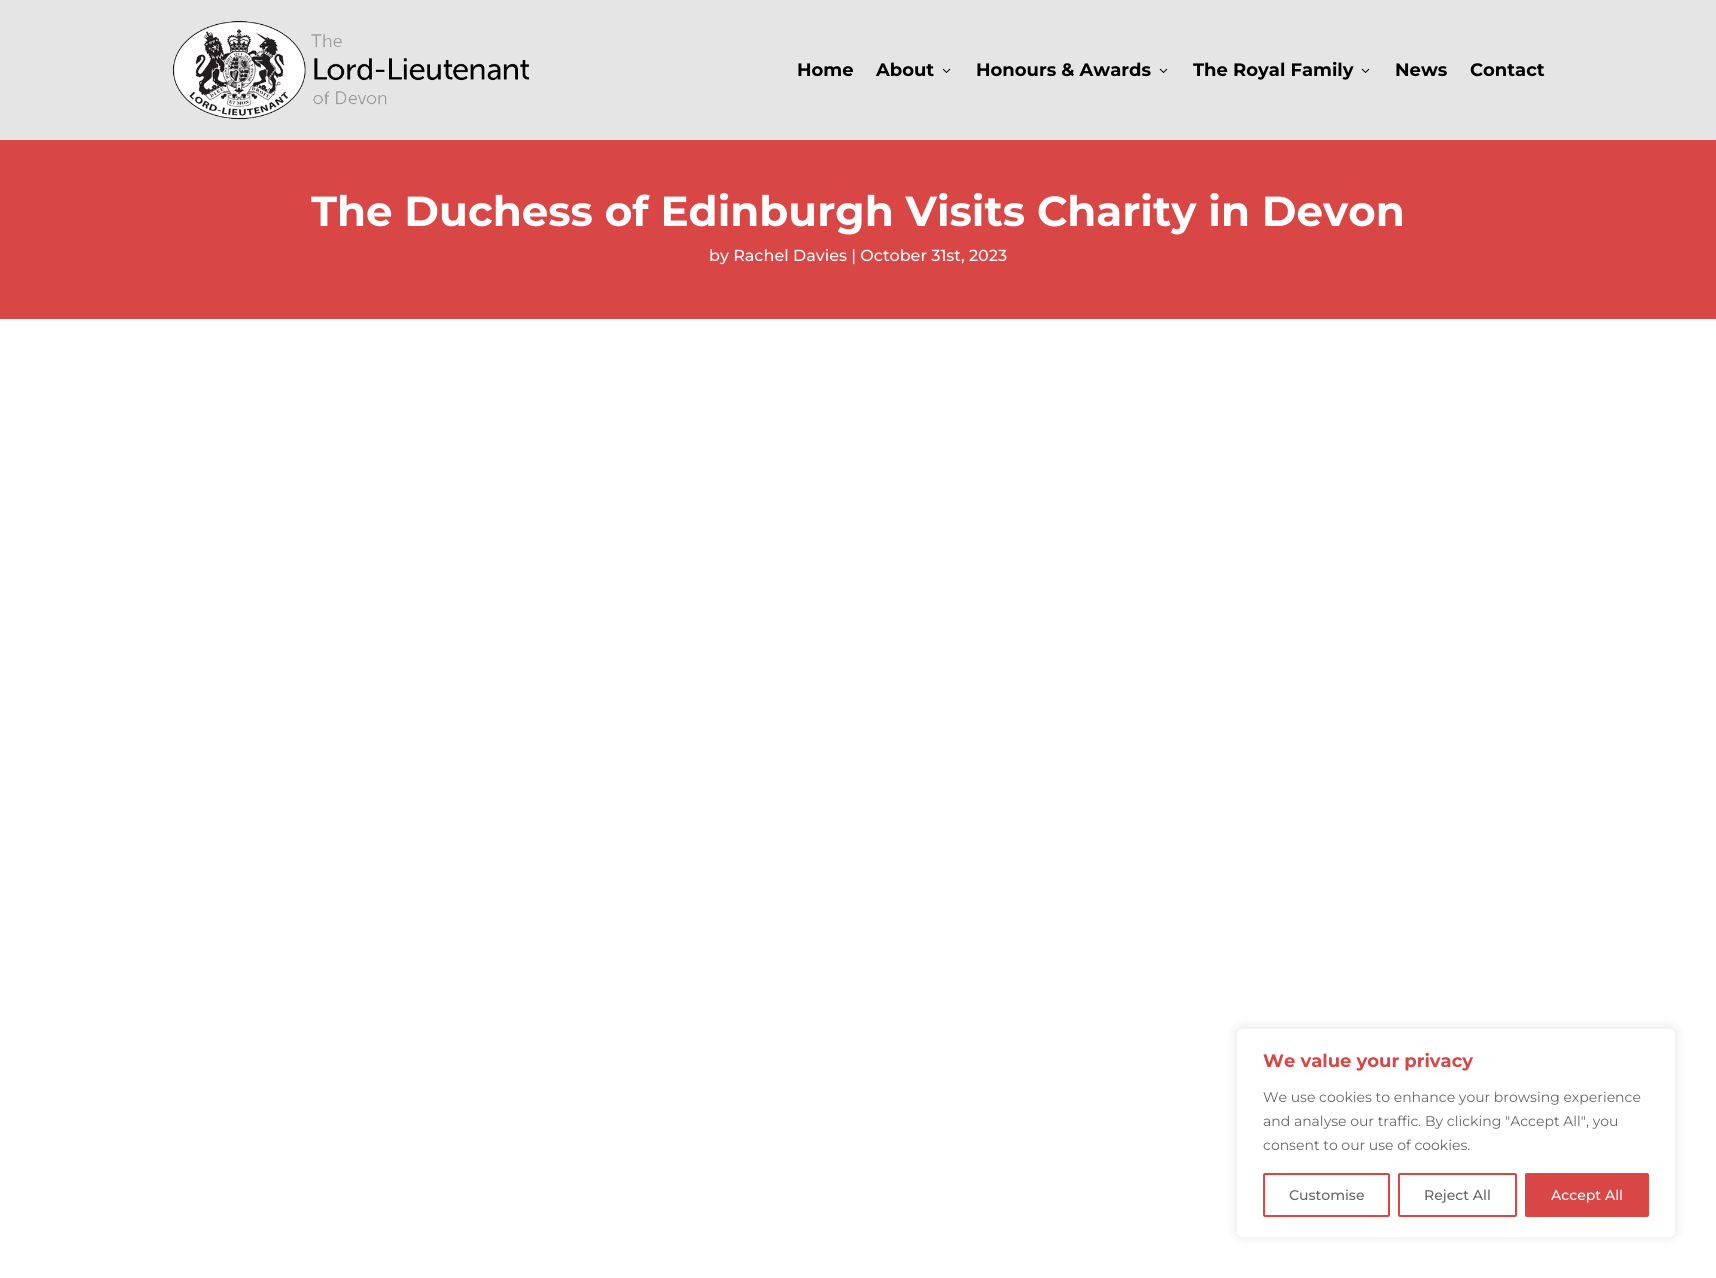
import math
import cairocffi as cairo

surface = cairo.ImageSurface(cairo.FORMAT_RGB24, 1716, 1278)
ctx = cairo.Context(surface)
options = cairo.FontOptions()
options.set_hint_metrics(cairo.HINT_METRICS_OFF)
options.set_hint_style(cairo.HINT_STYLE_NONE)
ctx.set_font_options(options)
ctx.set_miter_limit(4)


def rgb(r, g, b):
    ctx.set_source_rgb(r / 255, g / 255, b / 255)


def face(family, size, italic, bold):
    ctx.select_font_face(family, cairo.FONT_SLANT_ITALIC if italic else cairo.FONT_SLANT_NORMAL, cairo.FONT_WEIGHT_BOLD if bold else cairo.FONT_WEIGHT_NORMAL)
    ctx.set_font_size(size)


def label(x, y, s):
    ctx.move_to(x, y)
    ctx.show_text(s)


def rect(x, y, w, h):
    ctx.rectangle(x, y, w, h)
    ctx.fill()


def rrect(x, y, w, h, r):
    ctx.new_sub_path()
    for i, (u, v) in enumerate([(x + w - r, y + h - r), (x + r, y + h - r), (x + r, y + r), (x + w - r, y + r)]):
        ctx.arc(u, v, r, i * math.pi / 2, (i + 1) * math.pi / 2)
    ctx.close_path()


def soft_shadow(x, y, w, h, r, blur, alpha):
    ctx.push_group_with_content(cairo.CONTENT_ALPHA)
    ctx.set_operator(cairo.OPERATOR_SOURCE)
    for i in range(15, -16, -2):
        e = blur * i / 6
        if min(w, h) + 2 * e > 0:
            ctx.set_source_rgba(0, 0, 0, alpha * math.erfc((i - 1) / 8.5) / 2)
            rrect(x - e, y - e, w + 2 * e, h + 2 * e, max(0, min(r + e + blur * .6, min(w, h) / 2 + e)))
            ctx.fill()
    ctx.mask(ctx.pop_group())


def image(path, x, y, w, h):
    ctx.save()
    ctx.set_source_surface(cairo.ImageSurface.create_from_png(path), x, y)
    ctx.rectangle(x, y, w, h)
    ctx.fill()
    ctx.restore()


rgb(255, 255, 255)
ctx.paint()
rgb(229, 229, 229)
rect(0, 0, 1716, 140)
image('image0.png', 172, 21, 358, 99)
face('Montserrat Thin', 18, 0, 0)
rgb(0, 0, 0)
label(797, 76, 'Home')
label(876, 76, 'About')
image('image1.png', 942, 68, 9, 5)
label(976, 76, 'Honours & Awards')
image('image1.png', 1159, 68, 9, 5)
label(1193, 76, 'The Royal Family')
image('image1.png', 1361, 68, 9, 5)
label(1395, 76, 'News')
label(1470, 76, 'Contact')
rgb(216, 70, 70)
rect(0, 140, 1716, 179)
face('Montserrat Thin', 42, 0, 0)
rgb(255, 255, 255)
label(311, 226, 'The Duchess of Edinburgh Visits Charity in Devon')
face('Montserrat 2 Thin', 16, 0, 0)
label(709, 261, 'by Rachel Davies | October 31st, 2023')
rgb(172, 171, 171)
soft_shadow(1236, 1027, 440, 210, 6, 5, 0.3)
rgb(255, 255, 255)
rrect(1236.5, 1028.5, 439, 209, 5.5)
ctx.fill_preserve()
rgb(244, 244, 244)
ctx.set_line_width(1)
ctx.stroke()
face('Montserrat Thin', 18, 0, 0)
rgb(216, 70, 70)
label(1263, 1067, 'We value your privacy')
face('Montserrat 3 Thin', 14, 0, 0)
rgb(102, 102, 102)
label(1263, 1102, 'We use cookies to enhance your browsing experience')
label(1263, 1126, 'and analyse our traffic. By clicking "Accept All", you')
label(1263, 1150, 'consent to our use of cookies.')
rrect(1264, 1174, 125, 42, 1)
rgb(216, 70, 70)
ctx.set_line_width(2)
ctx.stroke()
face('Montserrat 2 Thin', 14, 0, 0)
rgb(102, 102, 102)
label(1289, 1200, 'Customise')
rrect(1399, 1174, 117, 42, 1)
rgb(216, 70, 70)
ctx.stroke()
rgb(102, 102, 102)
label(1424, 1200, 'Reject All')
rgb(216, 70, 70)
rrect(1526, 1174, 122, 42, 1)
ctx.fill_preserve()
ctx.stroke()
rgb(255, 255, 255)
label(1551, 1200, 'Accept All')
surface.write_to_png('render.png')
